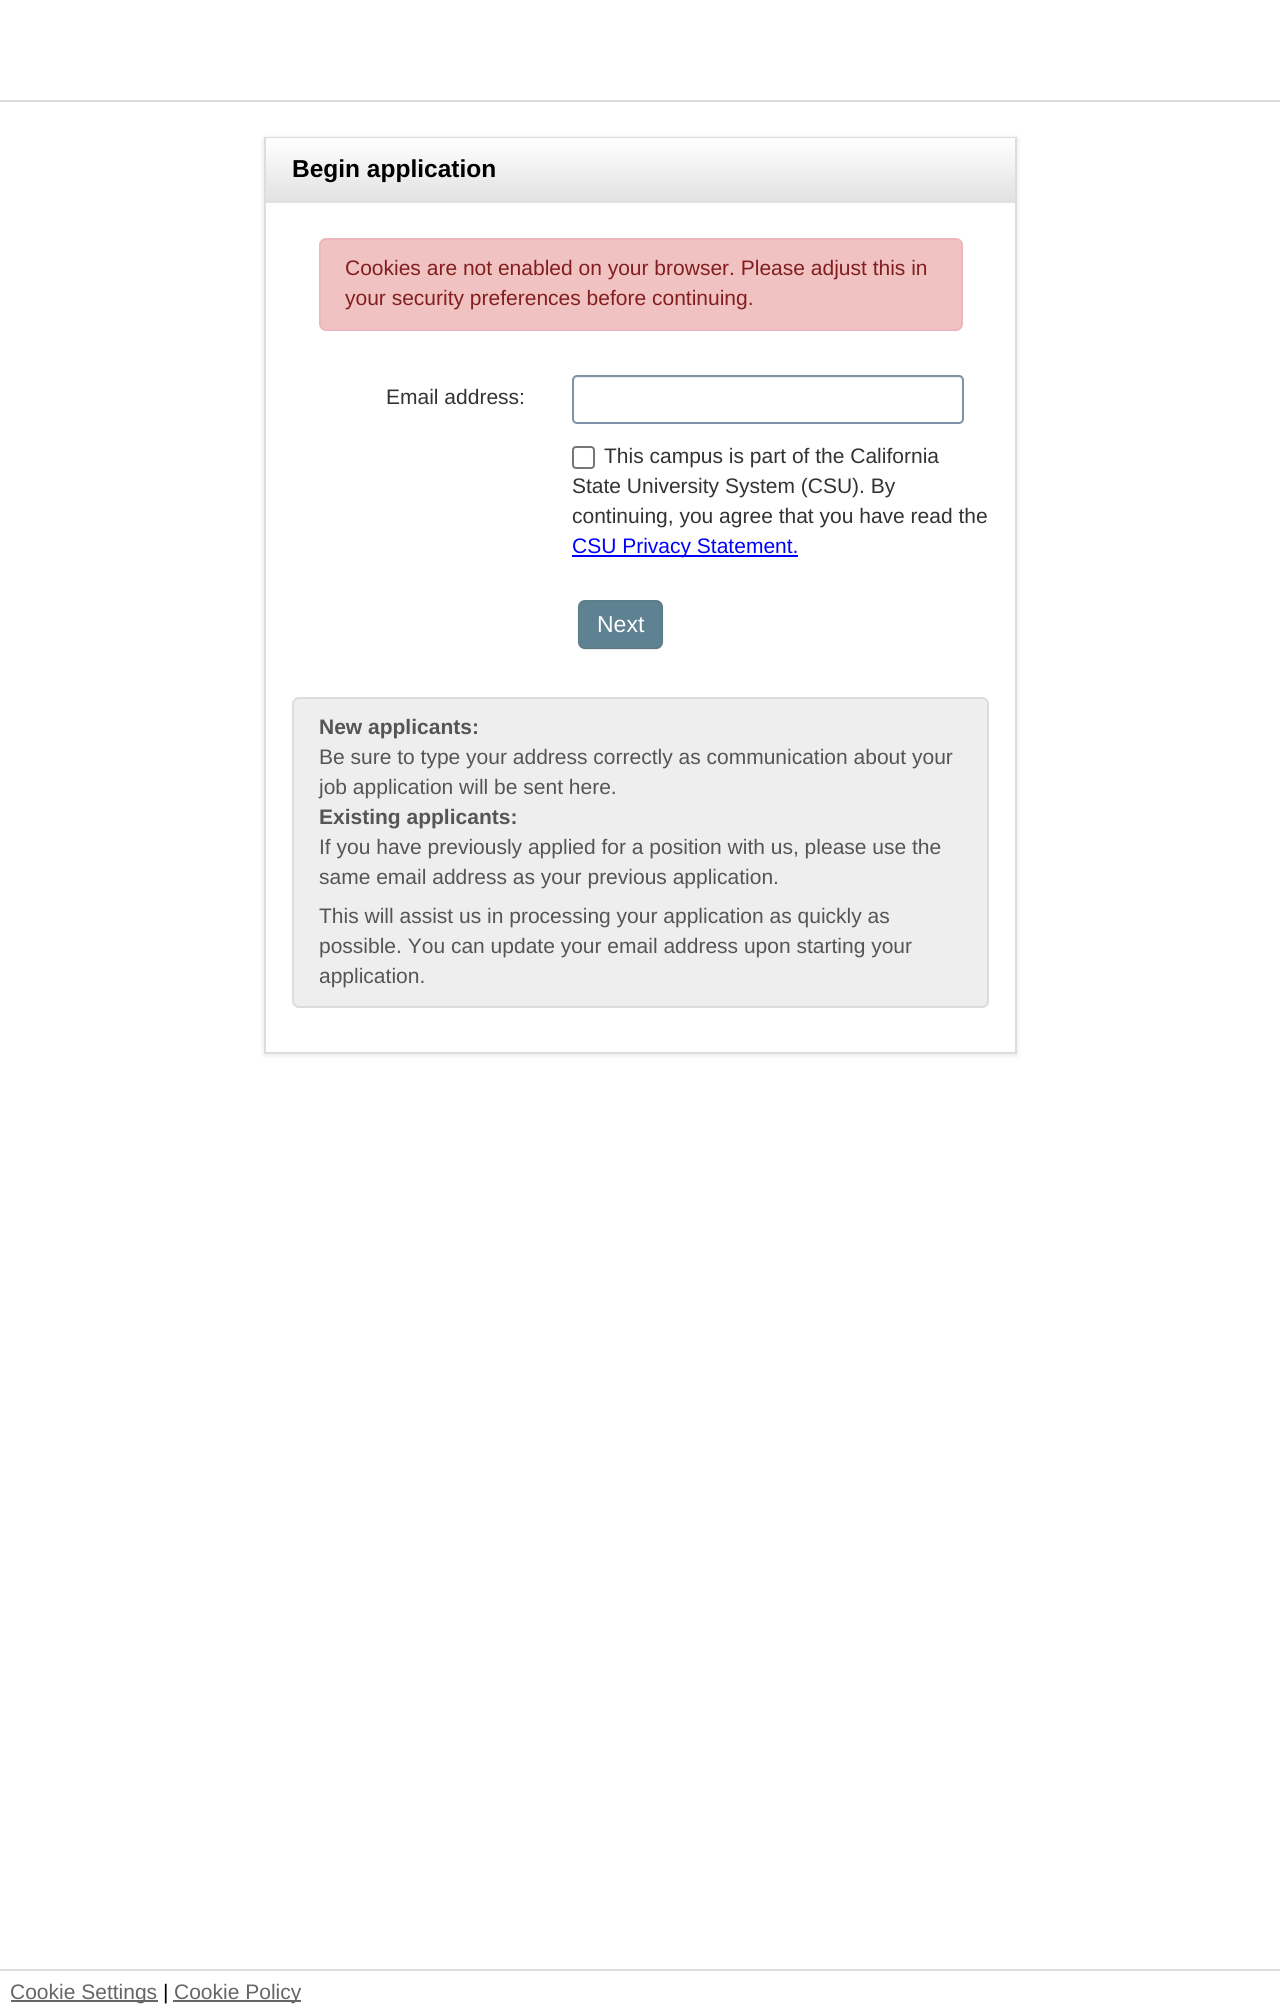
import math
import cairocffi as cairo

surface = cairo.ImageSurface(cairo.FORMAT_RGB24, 1280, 2013)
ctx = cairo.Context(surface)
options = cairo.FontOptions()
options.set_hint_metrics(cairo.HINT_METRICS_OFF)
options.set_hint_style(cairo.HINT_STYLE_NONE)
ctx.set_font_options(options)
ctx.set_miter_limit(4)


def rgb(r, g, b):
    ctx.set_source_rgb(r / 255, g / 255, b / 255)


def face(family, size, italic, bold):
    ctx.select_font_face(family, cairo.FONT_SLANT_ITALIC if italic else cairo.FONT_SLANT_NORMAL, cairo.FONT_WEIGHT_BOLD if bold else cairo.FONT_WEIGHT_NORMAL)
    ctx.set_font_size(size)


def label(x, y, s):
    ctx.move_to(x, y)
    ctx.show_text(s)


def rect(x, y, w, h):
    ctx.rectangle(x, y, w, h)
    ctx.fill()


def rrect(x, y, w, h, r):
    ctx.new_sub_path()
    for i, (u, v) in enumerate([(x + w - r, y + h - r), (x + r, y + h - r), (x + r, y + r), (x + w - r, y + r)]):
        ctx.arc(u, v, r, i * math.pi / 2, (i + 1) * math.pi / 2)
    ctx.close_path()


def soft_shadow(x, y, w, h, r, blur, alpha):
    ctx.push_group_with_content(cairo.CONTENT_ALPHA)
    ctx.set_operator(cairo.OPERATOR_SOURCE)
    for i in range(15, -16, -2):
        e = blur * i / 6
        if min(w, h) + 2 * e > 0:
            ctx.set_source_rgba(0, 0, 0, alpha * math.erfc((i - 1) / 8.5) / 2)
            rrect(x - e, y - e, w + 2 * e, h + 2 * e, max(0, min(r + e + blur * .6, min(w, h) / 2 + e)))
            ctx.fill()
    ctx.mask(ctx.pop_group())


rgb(255, 255, 255)
ctx.paint()
rgb(221, 221, 221)
rect(0, 100, 1280, 2)
rgb(0, 0, 0)
soft_shadow(264, 138, 753, 917, 0, 2.5, 0.11)
rgb(255, 255, 255)
rect(266, 203, 749, 849)
ctx.rectangle(265, 138, 751, 915)
rgb(221, 221, 221)
ctx.stroke()
gradient = cairo.LinearGradient(641, 138, 641, 203)
gradient.add_color_stop_rgba(0, 1, 1, 1, 1)
gradient.add_color_stop_rgba(1, 0.882, 0.882, 0.882, 1)
ctx.set_source(gradient)
rect(266, 138, 749, 65)
face('Liberation Sans', 24.5, 0, 1)
rgb(0, 0, 0)
label(292, 177, 'Begin application')
rgb(241, 194, 194)
rrect(320, 239, 642, 91, 6)
ctx.fill_preserve()
rgb(238, 182, 191)
ctx.stroke()
face('Liberation Sans', 21, 0, 0)
rgb(130, 30, 30)
label(345, 275, 'Cookies are not enabled on your browser. Please adjust this in')
label(345, 305, 'your security preferences before continuing.')
rgb(51, 51, 51)
label(386, 404, 'Email address:')
rgb(236, 236, 236)
ctx.new_path()
ctx.move_to(578, 378)
ctx.line_to(959, 378)
ctx.curve_to(961, 378, 962, 380, 962, 382)
ctx.line_to(962, 421)
ctx.curve_to(963, 420, 963, 419, 963, 418)
ctx.line_to(963, 380)
ctx.curve_to(963, 378, 961, 376, 959, 376)
ctx.line_to(578, 376)
ctx.curve_to(576, 376, 574, 378, 574, 380)
ctx.line_to(574, 382)
ctx.curve_to(574, 380, 576, 378, 578, 378)
ctx.close_path()
ctx.fill()
rrect(573, 376, 390, 47, 4)
rgb(125, 148, 171)
ctx.stroke()
rrect(573, 447, 21, 21, 3)
rgb(118, 118, 118)
ctx.stroke()
rgb(51, 51, 51)
label(604, 463, 'This campus is part of the California')
label(572, 493, 'State University System (CSU). By')
label(572, 523, 'continuing, you agree that you have read the')
rgb(0, 0, 255)
rect(572, 555, 226, 2)
label(572, 553, 'CSU Privacy Statement.')
rgb(94, 130, 145)
rrect(578, 600, 85, 49, 7)
ctx.fill()
ctx.new_path()
ctx.move_to(660.5, 646.5)
ctx.curve_to(659.5, 647.5, 658, 648.5, 656, 648.5)
ctx.line_to(584.5, 648.5)
ctx.curve_to(583, 648.5, 581.5, 647.5, 580, 646.5)
ctx.set_source_rgba(0.349, 0.349, 0.349, 0.25)
ctx.set_line_width(1.8)
ctx.stroke()
ctx.new_path()
ctx.move_to(580, 646.5)
ctx.curve_to(579, 645.5, 578.5, 644, 578.5, 642)
ctx.line_to(578.5, 607)
ctx.curve_to(578.5, 605.5, 579, 604, 580, 603)
ctx.curve_to(581.5, 602, 583, 601, 584.5, 601)
ctx.line_to(656, 601)
ctx.curve_to(658, 601, 659.5, 602, 660.5, 603)
ctx.curve_to(661.5, 604, 662.5, 605.5, 662.5, 607)
ctx.line_to(662.5, 642)
ctx.curve_to(662.5, 644, 661.5, 645.5, 660.5, 646.5)
ctx.set_source_rgba(0.349, 0.349, 0.349, 0.1)
ctx.stroke()
face('Liberation Sans', 23, 0, 0)
rgb(255, 255, 255)
label(597, 632, 'Next')
rgb(238, 238, 238)
rrect(293, 698, 695, 309, 6)
ctx.fill_preserve()
rgb(220, 220, 220)
ctx.set_line_width(2)
ctx.stroke()
face('Liberation Sans', 21, 0, 1)
rgb(85, 85, 85)
label(319, 734, 'New applicants:')
face('Liberation Sans', 21, 0, 0)
label(319, 764, 'Be sure to type your address correctly as communication about your')
label(319, 794, 'job application will be sent here.')
face('Liberation Sans', 21, 0, 1)
label(319, 824, 'Existing applicants:')
face('Liberation Sans', 21, 0, 0)
label(319, 854, 'If you have previously applied for a position with us, please use the')
label(319, 884, 'same email address as your previous application.')
label(319, 923, 'This will assist us in processing your application as quickly as')
label(319, 953, 'possible. You can update your email address upon starting your')
label(319, 983, 'application.')
rgb(221, 221, 221)
rect(0, 1969, 1280, 2)
rgb(102, 102, 102)
rect(11, 2000, 147, 2)
label(10, 1999, 'Cookie Settings')
rgb(0, 0, 0)
label(163, 1999, '|')
rgb(102, 102, 102)
rect(173, 2000, 128, 2)
label(174, 1999, 'Cookie Policy')
surface.write_to_png('render.png')
